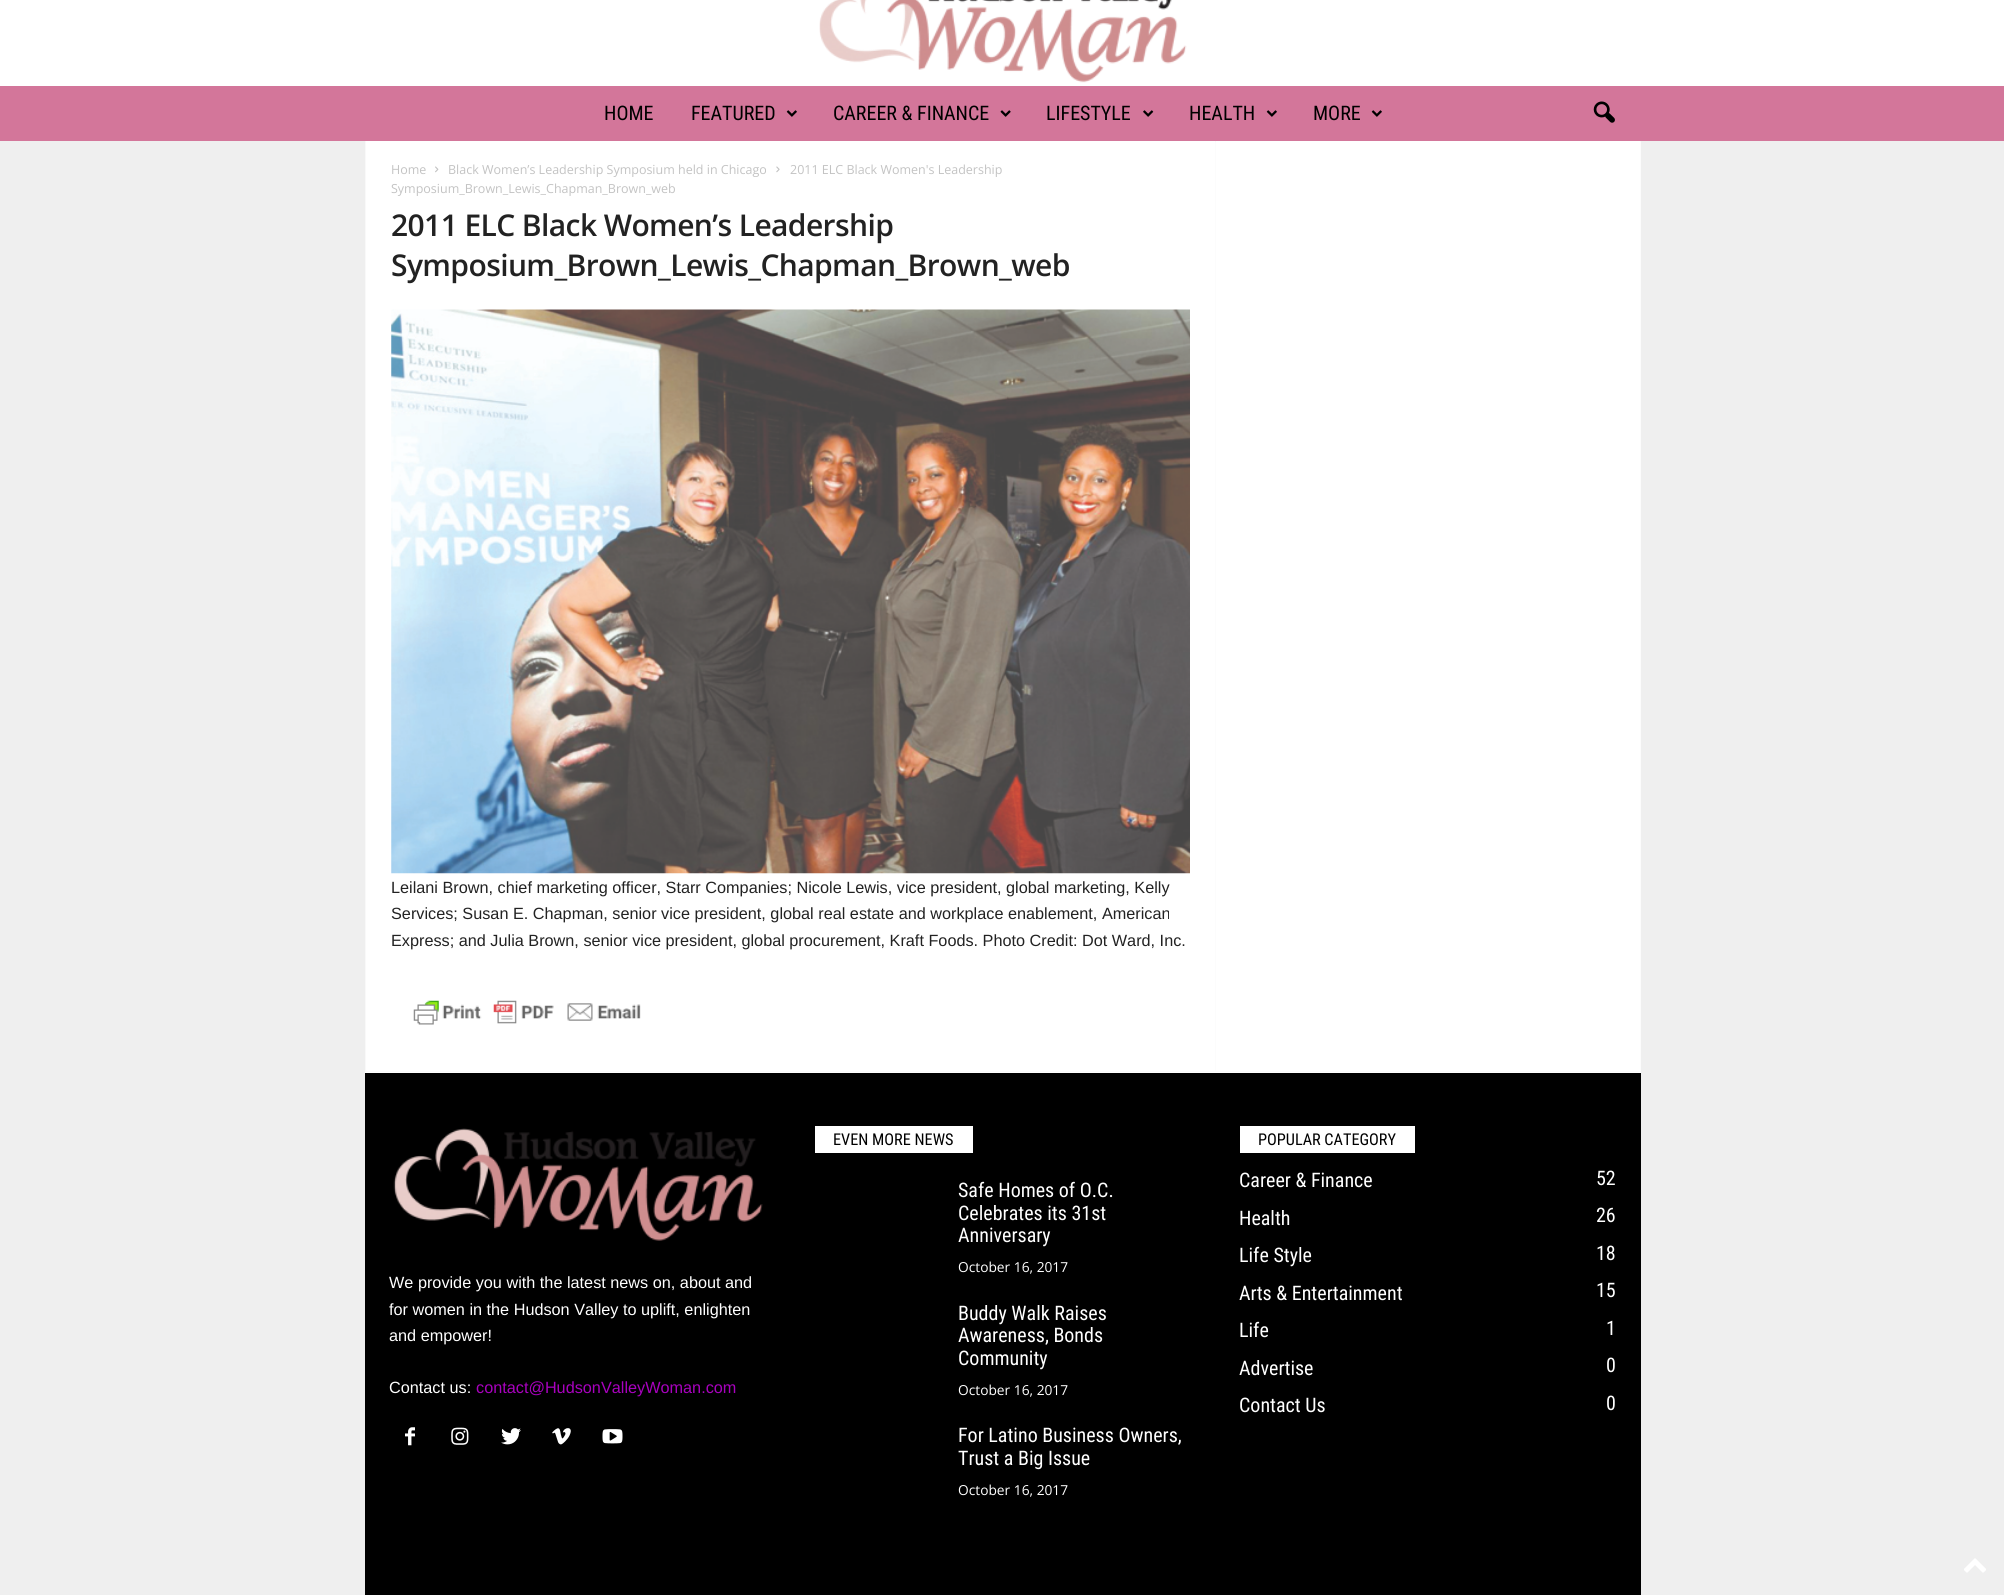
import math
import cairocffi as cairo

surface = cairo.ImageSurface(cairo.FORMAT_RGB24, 2004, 1595)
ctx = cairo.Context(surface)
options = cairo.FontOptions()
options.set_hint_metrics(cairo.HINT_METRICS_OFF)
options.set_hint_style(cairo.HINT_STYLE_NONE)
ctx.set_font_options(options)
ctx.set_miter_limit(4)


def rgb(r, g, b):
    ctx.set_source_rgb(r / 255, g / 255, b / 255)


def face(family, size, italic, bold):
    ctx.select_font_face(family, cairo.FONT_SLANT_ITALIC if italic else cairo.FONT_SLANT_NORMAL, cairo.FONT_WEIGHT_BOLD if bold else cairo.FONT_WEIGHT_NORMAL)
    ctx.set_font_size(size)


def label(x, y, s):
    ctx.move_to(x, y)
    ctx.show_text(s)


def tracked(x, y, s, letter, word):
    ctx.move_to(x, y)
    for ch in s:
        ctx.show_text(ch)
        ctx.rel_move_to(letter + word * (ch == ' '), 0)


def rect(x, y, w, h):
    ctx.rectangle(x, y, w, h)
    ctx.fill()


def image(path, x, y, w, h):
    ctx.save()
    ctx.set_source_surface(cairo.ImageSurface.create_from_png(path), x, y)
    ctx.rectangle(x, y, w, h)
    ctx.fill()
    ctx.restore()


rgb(239, 239, 239)
ctx.paint()
rgb(255, 255, 255)
rect(0, 0, 2004, 86)
image('image0.png', 819, 0, 368, 83)
rgb(211, 118, 154)
rect(0, 86, 2004, 55)
face('Roboto Condensed', 20, 0, 0)
rgb(0, 0, 0)
label(604, 120, 'HOME')
label(691, 120, 'FEATURED')
image('image1.png', 786, 110, 11, 7)
label(833, 120, 'CAREER & FINANCE')
image('image2.png', 1000, 110, 11, 7)
label(1046, 120, 'LIFESTYLE')
image('image3.png', 1143, 110, 11, 7)
label(1189, 120, 'HEALTH')
image('image1.png', 1266, 110, 11, 7)
label(1313, 120, 'MORE')
image('image1.png', 1371, 110, 11, 7)
image('image4.png', 1593, 101, 22, 22)
rgb(255, 255, 255)
rect(365, 141, 1276, 932)
rgb(252, 252, 252)
rect(365, 1071, 1276, 1)
rect(1215, 141, 1, 930)
rgb(249, 249, 249)
rect(1215, 141, 1, 1)
rgb(252, 252, 252)
rect(1640, 141, 1, 930)
rgb(249, 249, 249)
rect(1640, 141, 1, 1)
rect(365, 141, 1, 930)
face('Open Sans', 12.5, 0, 0)
rgb(195, 195, 195)
label(391, 174, 'Home')
image('image5.png', 435, 166, 4, 7)
label(448, 174, 'Black Women’s Leadership Symposium held in Chicago')
image('image6.png', 776, 166, 4, 7)
label(790, 174, '2011 ELC Black Women\'s Leadership')
label(391, 193, 'Symposium_Brown_Lewis_Chapman_Brown_web')
face('Open Sans SemiBold', 30, 0, 0)
rgb(34, 34, 34)
tracked(391, 236, '2011 ELC Black Women’s Leadership', -0.6, 0)
tracked(391, 276, 'Symposium_Brown_Lewis_Chapman_Brown_web', -0.6, 0)
image('image7.png', 391, 309, 799, 565)
face('Liberation Sans', 16.25, 0, 0)
label(391, 893, 'Leilani Brown, chief marketing officer, Starr Companies; Nicole Lewis, vice president, global marketing, Kelly')
label(391, 919, 'Services; Susan E. Chapman, senior vice president, global real estate and workplace enablement, American')
label(391, 946, 'Express; and Julia Brown, senior vice president, global procurement, Kraft Foods. Photo Credit: Dot Ward, Inc.')
image('image8.png', 413, 1000, 228, 25)
rgb(0, 0, 0)
rect(365, 1073, 1276, 522)
image('image9.png', 393, 1128, 370, 113)
rgb(255, 255, 255)
label(389, 1288, 'We provide you with the latest news on, about and')
label(389, 1315, 'for women in the Hudson Valley to uplift, enlighten')
label(389, 1341, 'and empower!')
label(389, 1393, 'Contact us:')
rgb(168, 1, 190)
label(476, 1393, 'contact@HudsonValleyWoman.com')
image('image10.png', 405, 1427, 10, 19)
image('image11.png', 451, 1427, 18, 18)
image('image12.png', 501, 1428, 20, 17)
image('image13.png', 552, 1428, 19, 17)
image('image14.png', 602, 1429, 21, 15)
rgb(255, 255, 255)
rect(815, 1126, 158, 27)
face('Roboto Condensed', 16.25, 0, 0)
rgb(0, 0, 0)
label(833, 1145, 'EVEN MORE NEWS')
face('Roboto Condensed', 20, 0, 0)
rgb(255, 255, 255)
label(958, 1197, 'Safe Homes of O.C.')
label(958, 1220, 'Celebrates its 31st')
label(958, 1242, 'Anniversary')
face('Open Sans', 13.75, 0, 0)
label(958, 1272, 'October 16, 2017')
face('Roboto Condensed', 20, 0, 0)
label(958, 1320, 'Buddy Walk Raises')
label(958, 1342, 'Awareness, Bonds')
label(958, 1365, 'Community')
face('Open Sans', 13.75, 0, 0)
label(958, 1395, 'October 16, 2017')
face('Roboto Condensed', 20, 0, 0)
label(958, 1442, 'For Latino Business Owners,')
label(958, 1465, 'Trust a Big Issue')
face('Open Sans', 13.75, 0, 0)
label(958, 1495, 'October 16, 2017')
rect(1240, 1126, 175, 27)
face('Roboto Condensed', 16.25, 0, 0)
rgb(0, 0, 0)
label(1258, 1145, 'POPULAR CATEGORY')
face('Roboto Condensed', 20, 0, 0)
rgb(255, 255, 255)
label(1239, 1187, 'Career & Finance')
label(1596, 1185, '52')
label(1239, 1225, 'Health')
label(1596, 1222, '26')
label(1239, 1262, 'Life Style')
label(1596, 1260, '18')
label(1239, 1300, 'Arts & Entertainment')
label(1596, 1297, '15')
label(1239, 1337, 'Life')
label(1606, 1335, '1')
label(1239, 1375, 'Advertise')
label(1606, 1372, '0')
label(1239, 1412, 'Contact Us')
label(1606, 1410, '0')
image('image15.png', 1964, 1558, 22, 15)
surface.write_to_png('render.png')
